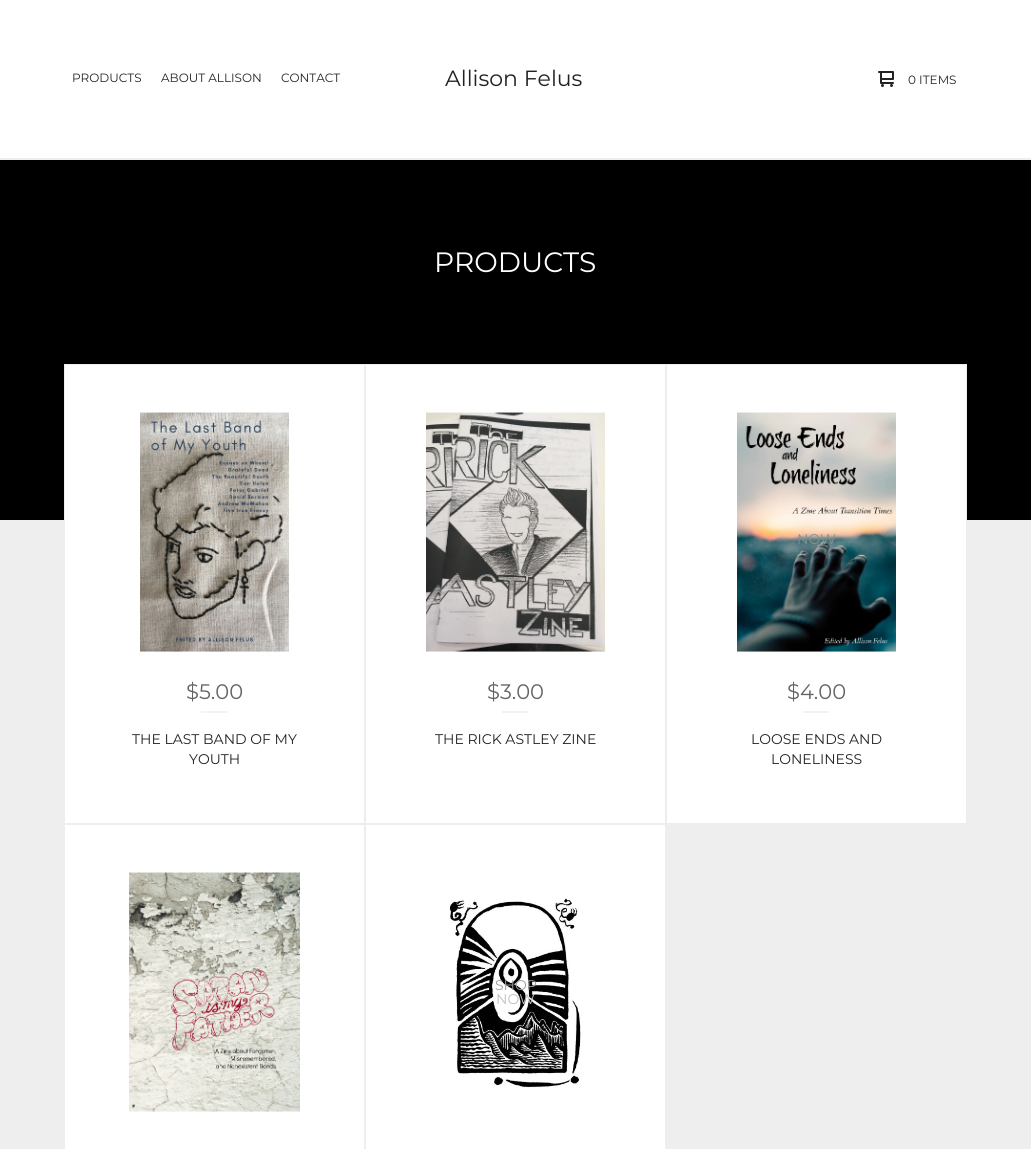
import math
import cairocffi as cairo

surface = cairo.ImageSurface(cairo.FORMAT_RGB24, 1031, 1149)
ctx = cairo.Context(surface)
options = cairo.FontOptions()
options.set_hint_metrics(cairo.HINT_METRICS_OFF)
options.set_hint_style(cairo.HINT_STYLE_NONE)
ctx.set_font_options(options)
ctx.set_miter_limit(4)


def rgb(r, g, b):
    ctx.set_source_rgb(r / 255, g / 255, b / 255)


def face(family, size, italic, bold):
    ctx.select_font_face(family, cairo.FONT_SLANT_ITALIC if italic else cairo.FONT_SLANT_NORMAL, cairo.FONT_WEIGHT_BOLD if bold else cairo.FONT_WEIGHT_NORMAL)
    ctx.set_font_size(size)


def label(x, y, s):
    ctx.move_to(x, y)
    ctx.show_text(s)


def rect(x, y, w, h):
    ctx.rectangle(x, y, w, h)
    ctx.fill()


def image(path, x, y, w, h):
    ctx.save()
    ctx.set_source_surface(cairo.ImageSurface.create_from_png(path), x, y)
    ctx.rectangle(x, y, w, h)
    ctx.fill()
    ctx.restore()


rgb(238, 238, 238)
ctx.paint()
rgb(255, 255, 255)
rect(0, 0, 1031, 158)
face('Montserrat', 12, 0, 0)
rgb(34, 34, 34)
label(72, 82, 'PRODUCTS')
label(161, 82, 'ABOUT ALLISON')
label(281, 82, 'CONTACT')
face('Montserrat', 22, 0, 0)
label(445, 86, 'Allison Felus')
image('image0.png', 878, 71, 16, 16)
face('Montserrat', 12, 0, 0)
label(908, 84, '0 ITEMS')
rgb(0, 0, 0)
rect(0, 160, 1031, 360)
face('Montserrat', 28, 0, 0)
rgb(255, 255, 255)
label(434, 272, 'PRODUCTS')
rgb(238, 238, 238)
rect(64, 364, 903, 156)
rgb(255, 255, 255)
rect(65, 365, 299, 458)
image('image1.png', 140, 412, 149, 240)
face('Montserrat', 21, 0, 0)
rgb(100, 100, 100)
label(186, 699, '$5.00')
rgb(243, 243, 243)
rect(201, 711, 26, 2)
face('Montserrat', 14, 0, 0)
rgb(34, 34, 34)
label(132, 744, 'THE LAST BAND OF MY')
label(189, 764, 'YOUTH')
rgb(255, 255, 255)
rect(366, 365, 299, 458)
image('image2.png', 426, 412, 179, 240)
face('Montserrat', 21, 0, 0)
rgb(100, 100, 100)
label(487, 699, '$3.00')
rgb(243, 243, 243)
rect(502, 711, 26, 2)
face('Montserrat', 14, 0, 0)
rgb(34, 34, 34)
label(435, 744, 'THE RICK ASTLEY ZINE')
rgb(255, 255, 255)
rect(667, 365, 299, 458)
image('image3.png', 737, 412, 159, 240)
rgb(135, 144, 140)
label(797, 544, 'NOW')
face('Montserrat', 21, 0, 0)
rgb(100, 100, 100)
label(787, 699, '$4.00')
rgb(243, 243, 243)
rect(803, 711, 26, 2)
face('Montserrat', 14, 0, 0)
rgb(34, 34, 34)
label(751, 744, 'LOOSE ENDS AND')
label(771, 764, 'LONELINESS')
rgb(255, 255, 255)
rect(65, 825, 299, 324)
image('image4.png', 129, 872, 171, 240)
rgb(218, 203, 198)
label(194, 990, 'SHOP')
rgb(218, 193, 190)
label(195, 1004, 'NOW')
rgb(255, 255, 255)
rect(366, 825, 299, 324)
image('image5.png', 449, 897, 132, 191)
rgb(159, 159, 159)
label(495, 990, 'SHOP')
rgb(191, 191, 191)
label(496, 1004, 'NOW')
surface.write_to_png('render.png')
